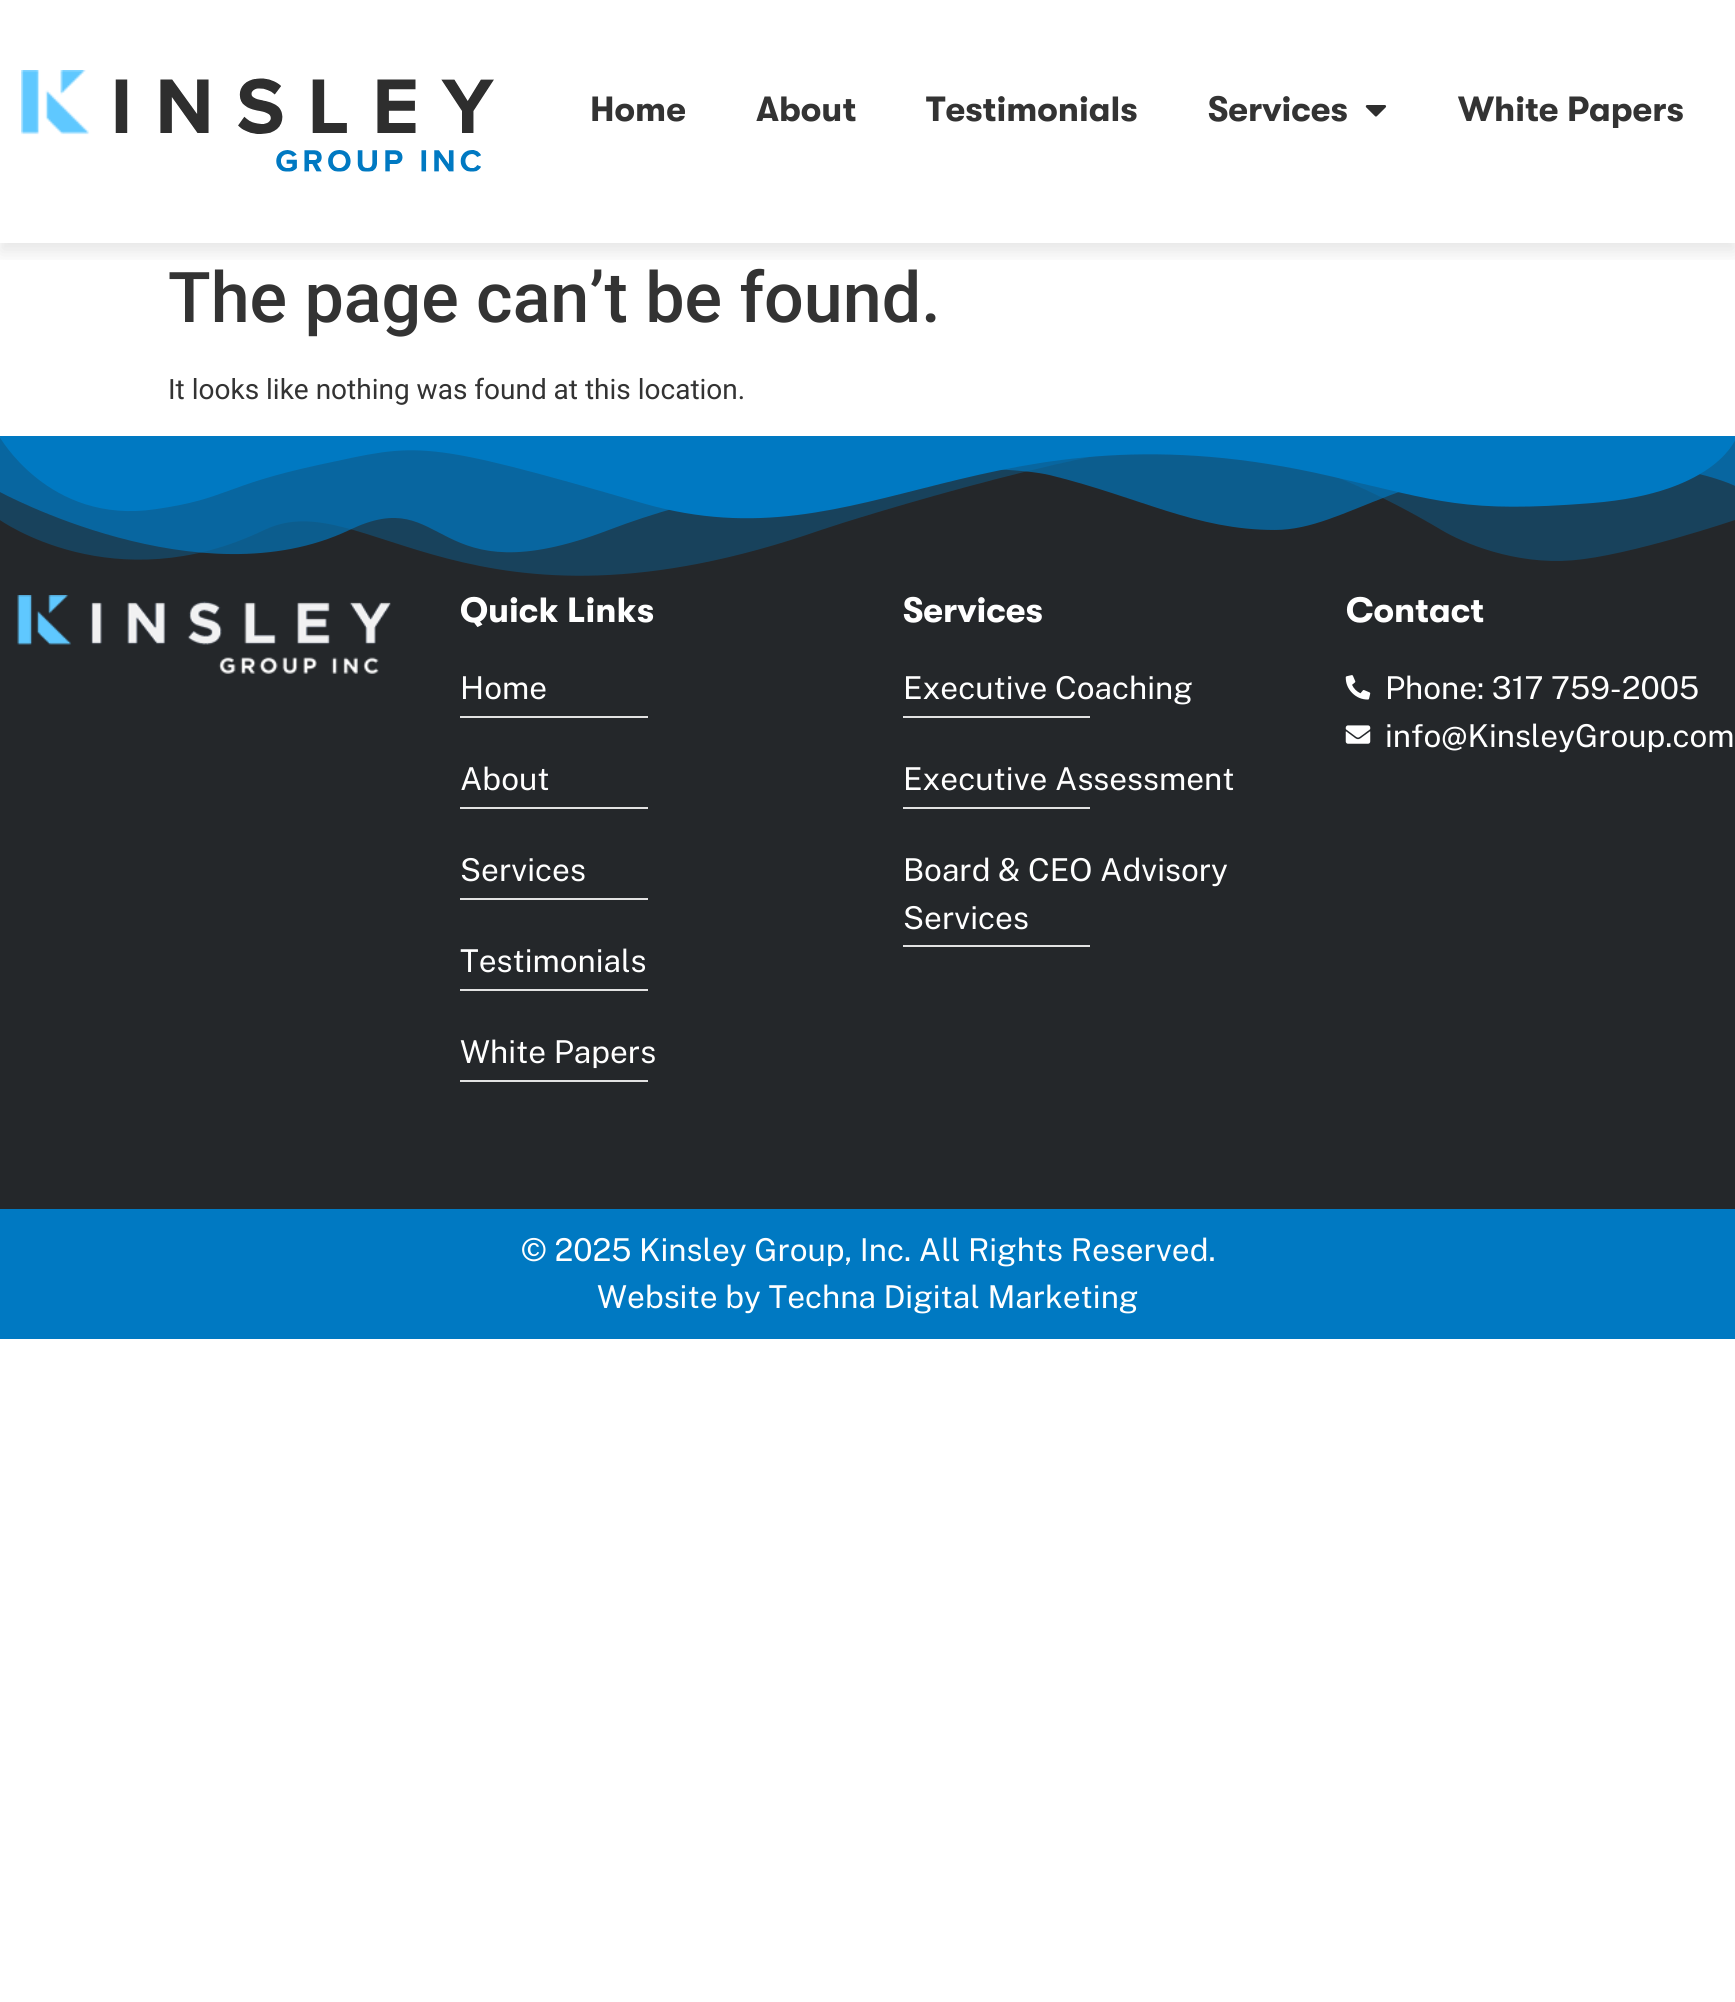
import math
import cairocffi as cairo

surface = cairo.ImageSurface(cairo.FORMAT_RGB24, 1735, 2002)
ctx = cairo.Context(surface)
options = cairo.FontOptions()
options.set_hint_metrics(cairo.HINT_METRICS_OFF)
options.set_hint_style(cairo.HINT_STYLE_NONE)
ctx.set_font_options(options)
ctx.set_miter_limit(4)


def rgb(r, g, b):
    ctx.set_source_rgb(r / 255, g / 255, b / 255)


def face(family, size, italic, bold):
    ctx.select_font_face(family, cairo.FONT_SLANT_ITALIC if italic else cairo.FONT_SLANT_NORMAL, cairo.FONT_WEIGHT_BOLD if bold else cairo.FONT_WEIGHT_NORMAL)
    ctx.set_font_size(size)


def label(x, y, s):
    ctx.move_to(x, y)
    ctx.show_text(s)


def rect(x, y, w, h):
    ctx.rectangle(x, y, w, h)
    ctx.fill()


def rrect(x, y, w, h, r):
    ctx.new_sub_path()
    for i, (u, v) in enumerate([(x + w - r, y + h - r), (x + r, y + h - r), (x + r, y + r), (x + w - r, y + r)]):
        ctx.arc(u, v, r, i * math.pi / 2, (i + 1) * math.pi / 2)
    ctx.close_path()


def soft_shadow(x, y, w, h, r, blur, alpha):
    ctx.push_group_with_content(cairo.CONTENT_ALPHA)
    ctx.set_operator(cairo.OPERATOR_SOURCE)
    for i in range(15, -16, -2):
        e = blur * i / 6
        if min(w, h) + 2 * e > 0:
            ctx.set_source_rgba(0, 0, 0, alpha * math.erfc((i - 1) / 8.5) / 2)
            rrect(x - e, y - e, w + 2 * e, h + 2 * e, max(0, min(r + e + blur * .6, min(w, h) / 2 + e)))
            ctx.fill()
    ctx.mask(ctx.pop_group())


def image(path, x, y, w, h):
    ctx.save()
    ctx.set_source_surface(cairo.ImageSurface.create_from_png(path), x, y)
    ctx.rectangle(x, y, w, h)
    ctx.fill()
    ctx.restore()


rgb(255, 255, 255)
ctx.paint()
ctx.save()
ctx.rectangle(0, 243, 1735, 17)
ctx.clip()
rgb(0, 0, 0)
soft_shadow(0, 9, 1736, 243, 0, 9, 0.1)
ctx.restore()
image('image0.png', 21, 70, 473, 102)
face('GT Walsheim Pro', 35, 0, 1)
rgb(51, 51, 51)
label(590, 121, 'Home')
label(756, 121, 'About')
label(926, 121, 'Testimonials')
label(1208, 121, 'Services')
image('image1.png', 1365, 105, 22, 12)
label(1458, 121, 'White Papers')
face('Roboto Medium', 70, 0, 0)
label(168, 322, 'The page can’t be found.')
face('Roboto', 28, 0, 0)
label(168, 399, 'It looks like nothing was found at this location.')
rgb(36, 39, 42)
rect(0, 438, 1735, 771)
image('image2.png', 0, 436, 1735, 140)
image('image3.png', 17, 595, 374, 79)
face('GT Walsheim Pro', 35, 0, 1)
rgb(255, 255, 255)
label(460, 622, 'Quick Links')
face('Public Sans', 31.5, 0, 0)
label(460, 699, 'Home')
rgb(226, 226, 226)
rect(460, 716, 188, 2)
rgb(255, 255, 255)
label(460, 790, 'About')
rgb(226, 226, 226)
rect(460, 807, 188, 2)
rgb(255, 255, 255)
label(460, 881, 'Services')
rgb(226, 226, 226)
rect(460, 898, 188, 2)
rgb(255, 255, 255)
label(460, 972, 'Testimonials')
rgb(226, 226, 226)
rect(460, 989, 188, 2)
rgb(255, 255, 255)
label(460, 1063, 'White Papers')
rgb(226, 226, 226)
rect(460, 1080, 188, 2)
face('GT Walsheim Pro', 35, 0, 1)
rgb(255, 255, 255)
label(903, 622, 'Services')
face('Public Sans', 31.5, 0, 0)
label(903, 699, 'Executive Coaching')
rgb(226, 226, 226)
rect(903, 716, 187, 2)
rgb(255, 255, 255)
label(903, 790, 'Executive Assessment')
rgb(226, 226, 226)
rect(903, 807, 187, 2)
rgb(255, 255, 255)
label(903, 881, 'Board & CEO Advisory')
label(903, 929, 'Services')
rgb(226, 226, 226)
rect(903, 945, 187, 2)
face('GT Walsheim Pro', 35, 0, 1)
rgb(255, 255, 255)
label(1346, 622, 'Contact')
image('image4.png', 1345, 675, 26, 25)
face('Public Sans', 31.5, 0, 0)
label(1385, 699, 'Phone: 317 759-2005')
image('image5.png', 1345, 725, 26, 19)
label(1385, 747, 'info@KinsleyGroup.com')
rgb(0, 121, 194)
rect(0, 1209, 1735, 130)
rgb(255, 255, 255)
label(521, 1261, '© 2025 Kinsley Group, Inc. All Rights Reserved.')
label(597, 1308, 'Website by Techna Digital Marketing')
surface.write_to_png('render.png')
